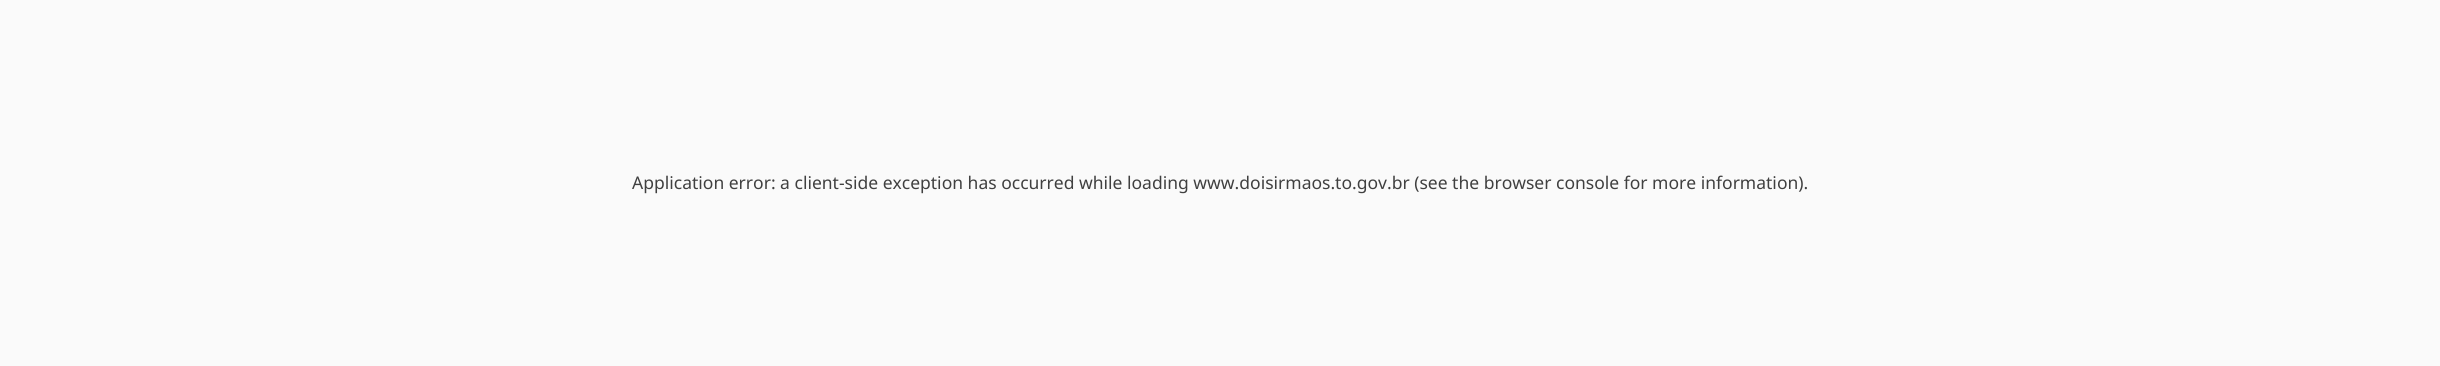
import math
import cairocffi as cairo

surface = cairo.ImageSurface(cairo.FORMAT_RGB24, 2440, 366)
ctx = cairo.Context(surface)
options = cairo.FontOptions()
options.set_hint_metrics(cairo.HINT_METRICS_OFF)
options.set_hint_style(cairo.HINT_STYLE_NONE)
ctx.set_font_options(options)
ctx.set_miter_limit(4)


def rgb(r, g, b):
    ctx.set_source_rgb(r / 255, g / 255, b / 255)


def face(family, size, italic, bold):
    ctx.select_font_face(family, cairo.FONT_SLANT_ITALIC if italic else cairo.FONT_SLANT_NORMAL, cairo.FONT_WEIGHT_BOLD if bold else cairo.FONT_WEIGHT_NORMAL)
    ctx.set_font_size(size)


def label(x, y, s):
    ctx.move_to(x, y)
    ctx.show_text(s)


rgb(250, 250, 250)
ctx.paint()
face('Noto Sans', 17.5, 0, 0)
rgb(64, 64, 64)
label(632, 189, 'Application error: a client-side exception has occurred while loading www.doisirmaos.to.gov.br (see the browser console for more information).')
surface.write_to_png('render.png')
